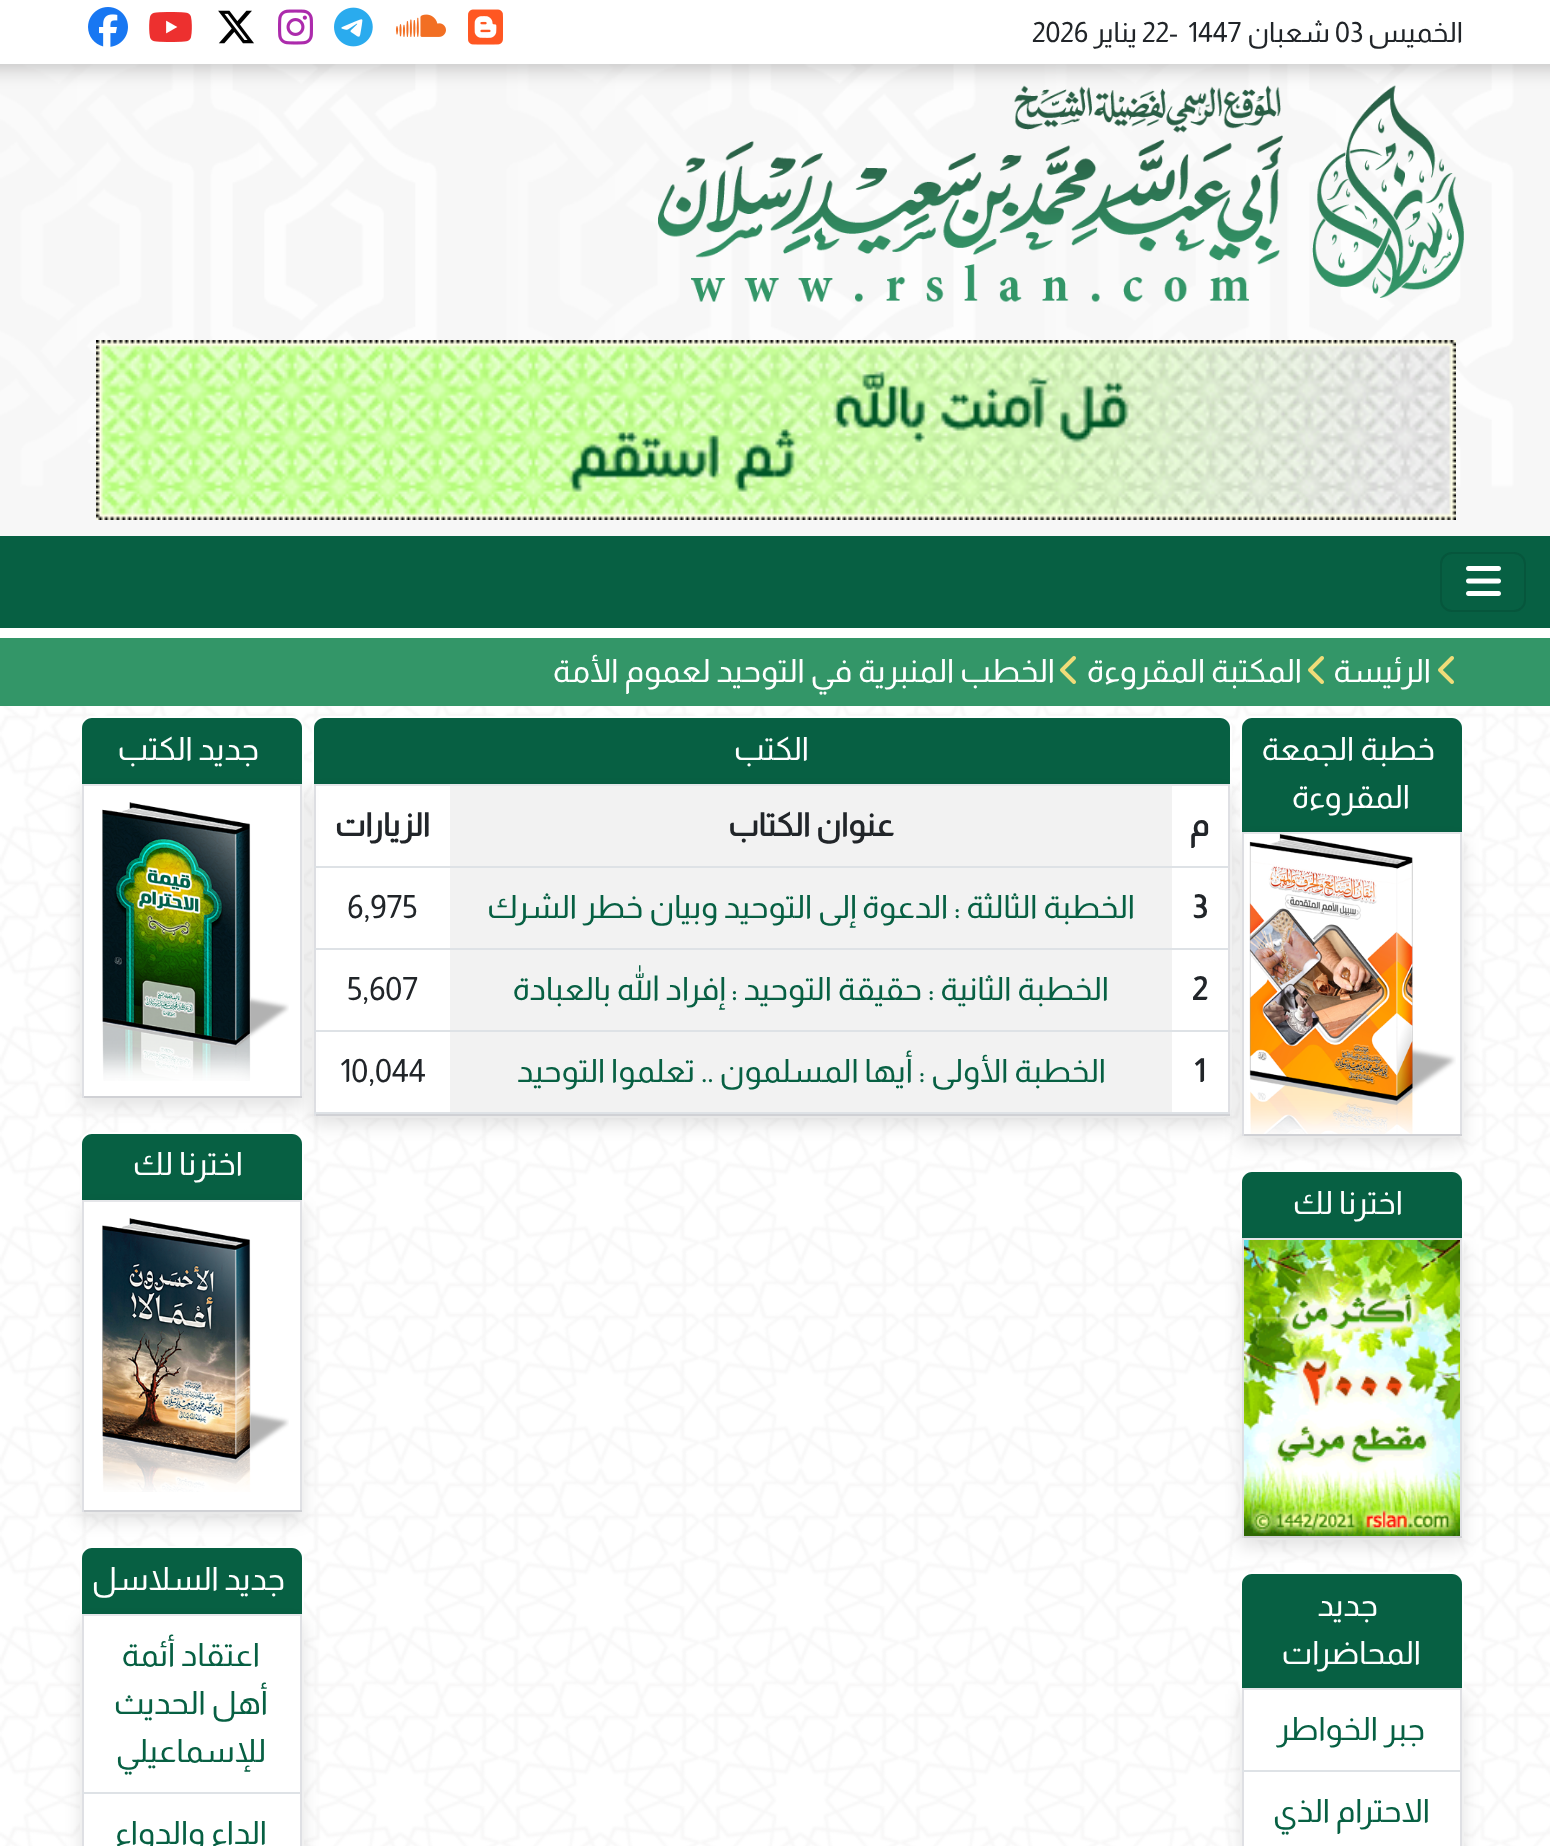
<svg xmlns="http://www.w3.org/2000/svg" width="1550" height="1846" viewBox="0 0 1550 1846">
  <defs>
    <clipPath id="clip1"><path d="M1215 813H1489V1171H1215ZM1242 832H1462V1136H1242Z" clip-rule="evenodd"/></clipPath>
    <filter id="blur1" x="-50%" y="-200%" width="200%" height="500%"><feGaussianBlur stdDeviation="8"/></filter>
    <clipPath id="clip2"><path d="M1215 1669H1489V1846H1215ZM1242 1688H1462V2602H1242Z" clip-rule="evenodd"/></clipPath>
    <clipPath id="clip3"><path d="M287 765H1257V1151H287ZM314 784H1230V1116H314Z" clip-rule="evenodd"/></clipPath>
    <clipPath id="clip4"><path d="M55 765H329V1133H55ZM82 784H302V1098H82Z" clip-rule="evenodd"/></clipPath>
    <clipPath id="clip5"><path d="M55 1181H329V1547H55ZM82 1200H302V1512H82Z" clip-rule="evenodd"/></clipPath>
    <clipPath id="clip6"><path d="M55 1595H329V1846H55ZM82 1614H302V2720H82Z" clip-rule="evenodd"/></clipPath>
  </defs>
  <rect width="100%" height="100%" fill="#ffffff"/>
  <image x="0" y="706" width="1550" height="1140" href="img1.png"/>
  <text x="1463" y="42" font-family="Almarai" font-size="28" direction="rtl" fill="#212529">الخميس</text>
  <text x="1335" y="42" font-family="Almarai" font-size="28" fill="#212529">03</text>
  <text x="1330" y="42" font-family="Almarai" font-size="28" direction="rtl" fill="#212529">شعبان</text>
  <text x="1188" y="42" font-family="Almarai" font-size="28" fill="#212529">1447</text>
  <text x="1142" y="42" font-family="Almarai" font-size="28" fill="#212529">22-</text>
  <text x="1137" y="42" font-family="Almarai" font-size="28" direction="rtl" fill="#212529">يناير</text>
  <text x="1032" y="42" font-family="Almarai" font-size="28" fill="#212529">2026</text>
  <image x="468" y="9" width="35" height="36" href="img2.png"/>
  <image x="396" y="14" width="50" height="23" href="img3.png"/>
  <image x="334" y="7" width="39" height="40" href="img4.png"/>
  <image x="278" y="9" width="35" height="36" href="img5.png"/>
  <image x="218" y="10" width="36" height="34" href="img6.png"/>
  <image x="149" y="12" width="43" height="30" href="img7.png"/>
  <image x="88" y="7" width="40" height="40" href="img8.png"/>
  <image x="0" y="64" width="1550" height="472" href="img9.png"/>
  <image x="658" y="85" width="806" height="217" href="img10.png"/>
  <image x="96" y="340" width="1360" height="180" href="img11.png"/>
  <rect x="0" y="536" width="1550" height="92" fill="#076043"/>
  <rect x="1441" y="553" width="84" height="58" rx="11" fill="none" stroke="#06563c" stroke-width="2"/>
  <image x="1466" y="566" width="35" height="30" href="img12.png"/>
  <rect x="0" y="638" width="1550" height="68" fill="#339668"/>
  <image x="1438" y="656" width="16" height="28" href="img13.png"/>
  <text x="1431" y="682" font-family="Almarai" font-size="32" direction="rtl" fill="#ffffff">الرئيسة</text>
  <image x="1308" y="656" width="16" height="28" href="img13.png"/>
  <text x="1302" y="682" font-family="Almarai" font-size="32" direction="rtl" fill="#ffffff">المكتبة المقروءة</text>
  <image x="1060" y="656" width="16" height="28" href="img13.png"/>
  <text x="1055" y="682" font-family="Almarai" font-size="32" direction="rtl" fill="#ffffff">الخطب المنبرية في التوحيد لعموم الأمة</text>
  <rect x="1240" y="716" width="224" height="422" rx="12" fill="#ffffff"/>
  <path d="M1252 718H1452C1457.5 718 1462 722.5 1462 728V832H1242V728C1242 722.5 1246.5 718 1252 718Z" fill="#076043"/>
  <text x="1435" y="760" font-family="Almarai" font-size="32" direction="rtl" fill="#ffffff">خطبة الجمعة</text>
  <text x="1410" y="808" font-family="Almarai" font-size="32" direction="rtl" fill="#ffffff">المقروءة</text>
  <g clip-path="url(#clip1)">
    <rect x="1240" y="838" width="224" height="308" fill="#000000" fill-opacity="0.1" filter="url(#blur1)"/>
  </g>
  <rect x="1242" y="832" width="220" height="2" fill="#e5e6e9"/>
  <rect x="1460" y="832" width="2" height="304" fill="#dfe0e4"/>
  <rect x="1242" y="1134" width="220" height="2" fill="#d0d1d5"/>
  <rect x="1242" y="832" width="2" height="304" fill="#dfe0e4"/>
  <image x="1249" y="834" width="207" height="300" href="img14.png"/>
  <rect x="1241" y="1171" width="222" height="368" rx="11" fill="none" stroke="#ffffff" stroke-width="2"/>
  <path d="M1252 1172H1452C1457.5 1172 1462 1176.5 1462 1182V1238H1242V1182C1242 1176.5 1246.5 1172 1252 1172Z" fill="#076043"/>
  <text x="1403" y="1214" font-family="Almarai" font-size="32" direction="rtl" fill="#ffffff">اخترنا لك</text>
  <rect x="1240" y="1244" width="224" height="304" fill="#000000" fill-opacity="0.1" filter="url(#blur1)"/>
  <rect x="1242" y="1238" width="220" height="2" fill="#e5e6e9"/>
  <rect x="1460" y="1238" width="2" height="300" fill="#dfe0e4"/>
  <rect x="1242" y="1536" width="220" height="2" fill="#d0d1d5"/>
  <rect x="1242" y="1238" width="2" height="300" fill="#dfe0e4"/>
  <image x="1244" y="1240" width="216" height="296" href="img15.png"/>
  <rect x="1240" y="1572" width="224" height="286" rx="12" fill="#ffffff"/>
  <path d="M1252 1574H1452C1457.5 1574 1462 1578.5 1462 1584V1688H1242V1584C1242 1578.5 1246.5 1574 1252 1574Z" fill="#076043"/>
  <text x="1378" y="1616" font-family="Almarai" font-size="32" direction="rtl" fill="#ffffff">جديد</text>
  <text x="1421" y="1664" font-family="Almarai" font-size="32" direction="rtl" fill="#ffffff">المحاضرات</text>
  <g clip-path="url(#clip2)">
    <rect x="1240" y="1694" width="224" height="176" fill="#000000" fill-opacity="0.1" filter="url(#blur1)"/>
  </g>
  <rect x="1242" y="1688" width="220" height="2" fill="#e5e6e9"/>
  <rect x="1460" y="1688" width="2" height="158" fill="#dfe0e4"/>
  <rect x="1242" y="1688" width="2" height="158" fill="#dfe0e4"/>
  <rect x="1242" y="1770" width="218" height="2" fill="#dee2e6"/>
  <text x="1425" y="1740" font-family="Almarai" font-size="32" direction="rtl" fill="#076043">جبر الخواطر</text>
  <text x="1430" y="1822" font-family="Almarai" font-size="32" direction="rtl" fill="#076043">الاحترام الذي</text>
  <rect x="312" y="716" width="920" height="402" rx="12" fill="#ffffff"/>
  <path d="M324 718H1220C1225.5 718 1230 722.5 1230 728V784H314V728C314 722.5 318.5 718 324 718Z" fill="#076043"/>
  <text x="809" y="760" font-family="Almarai" font-size="32" direction="rtl" fill="#ffffff">الكتب</text>
  <g clip-path="url(#clip3)">
    <rect x="312" y="790" width="920" height="336" fill="#000000" fill-opacity="0.1" filter="url(#blur1)"/>
  </g>
  <rect x="314" y="784" width="916" height="2" fill="#e5e6e9"/>
  <rect x="1228" y="784" width="2" height="332" fill="#dfe0e4"/>
  <rect x="314" y="1114" width="916" height="2" fill="#d0d1d5"/>
  <rect x="314" y="784" width="2" height="332" fill="#dfe0e4"/>
  <text x="1209" y="836" font-family="Almarai" font-size="32" font-weight="bold" direction="rtl" fill="#212529">م</text>
  <rect x="450" y="786" width="722" height="80" fill="#f2f2f2"/>
  <text x="894" y="836" font-family="Almarai" font-size="32" font-weight="bold" direction="rtl" fill="#212529">عنوان الكتاب</text>
  <rect x="314" y="866" width="914" height="2" fill="#dee2e6"/>
  <text x="430" y="836" font-family="Almarai" font-size="32" font-weight="bold" direction="rtl" fill="#212529">الزيارات</text>
  <text x="1192" y="918" font-family="Almarai" font-size="32" font-weight="bold" fill="#212529">3</text>
  <rect x="450" y="868" width="722" height="80" fill="#f2f2f2"/>
  <text x="1135" y="918" font-family="Almarai" font-size="32" direction="rtl" fill="#076043">الخطبة الثالثة : الدعوة إلى التوحيد وبيان خطر الشرك</text>
  <rect x="314" y="948" width="914" height="2" fill="#dee2e6"/>
  <text x="347" y="918" font-family="Almarai" font-size="32" fill="#212529">6,975</text>
  <text x="1192" y="1000" font-family="Almarai" font-size="32" font-weight="bold" fill="#212529">2</text>
  <rect x="450" y="950" width="722" height="80" fill="#f2f2f2"/>
  <text x="1109" y="1000" font-family="Almarai" font-size="32" direction="rtl" fill="#076043">الخطبة الثانية : حقيقة التوحيد : إفراد الله بالعبادة</text>
  <rect x="314" y="1030" width="914" height="2" fill="#dee2e6"/>
  <text x="347" y="1000" font-family="Almarai" font-size="32" fill="#212529">5,607</text>
  <text x="1194" y="1082" font-family="Almarai" font-size="32" font-weight="bold" fill="#212529">1</text>
  <rect x="450" y="1032" width="722" height="80" fill="#f2f2f2"/>
  <text x="1106" y="1082" font-family="Almarai" font-size="32" direction="rtl" fill="#076043">الخطبة الأولى : أيها المسلمون .. تعلموا التوحيد</text>
  <rect x="314" y="1112" width="914" height="2" fill="#dee2e6"/>
  <text x="340" y="1082" font-family="Almarai" font-size="32" fill="#212529">10,044</text>
  <rect x="80" y="716" width="224" height="384" rx="12" fill="#ffffff"/>
  <path d="M92 718H292C297.5 718 302 722.5 302 728V784H82V728C82 722.5 86.5 718 92 718Z" fill="#076043"/>
  <text x="259" y="760" font-family="Almarai" font-size="32" direction="rtl" fill="#ffffff">جديد الكتب</text>
  <g clip-path="url(#clip4)">
    <rect x="80" y="790" width="224" height="318" fill="#000000" fill-opacity="0.1" filter="url(#blur1)"/>
  </g>
  <rect x="82" y="784" width="220" height="2" fill="#e5e6e9"/>
  <rect x="300" y="784" width="2" height="314" fill="#dfe0e4"/>
  <rect x="82" y="1096" width="220" height="2" fill="#d0d1d5"/>
  <rect x="82" y="784" width="2" height="314" fill="#dfe0e4"/>
  <image x="102" y="802" width="187" height="279" href="img16.png"/>
  <rect x="80" y="1132" width="224" height="382" rx="12" fill="#ffffff"/>
  <path d="M92 1134H292C297.5 1134 302 1138.5 302 1144V1200H82V1144C82 1138.5 86.5 1134 92 1134Z" fill="#076043"/>
  <text x="243" y="1175" font-family="Almarai" font-size="32" direction="rtl" fill="#ffffff">اخترنا لك</text>
  <g clip-path="url(#clip5)">
    <rect x="80" y="1206" width="224" height="316" fill="#000000" fill-opacity="0.1" filter="url(#blur1)"/>
  </g>
  <rect x="82" y="1200" width="220" height="2" fill="#e5e6e9"/>
  <rect x="300" y="1200" width="2" height="312" fill="#dfe0e4"/>
  <rect x="82" y="1510" width="220" height="2" fill="#d0d1d5"/>
  <rect x="82" y="1200" width="2" height="312" fill="#dfe0e4"/>
  <image x="102" y="1218" width="187" height="274" href="img17.png"/>
  <rect x="80" y="1546" width="224" height="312" rx="12" fill="#ffffff"/>
  <path d="M92 1548H292C297.5 1548 302 1552.5 302 1558V1614H82V1558C82 1552.5 86.5 1548 92 1548Z" fill="#076043"/>
  <text x="285" y="1590" font-family="Almarai" font-size="32" direction="rtl" fill="#ffffff">جديد السلاسل</text>
  <g clip-path="url(#clip6)">
    <rect x="80" y="1620" width="224" height="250" fill="#000000" fill-opacity="0.1" filter="url(#blur1)"/>
  </g>
  <rect x="82" y="1614" width="220" height="2" fill="#e5e6e9"/>
  <rect x="300" y="1614" width="2" height="232" fill="#dfe0e4"/>
  <rect x="82" y="1614" width="2" height="232" fill="#dfe0e4"/>
  <rect x="82" y="1792" width="218" height="2" fill="#dee2e6"/>
  <text x="260" y="1666" font-family="Almarai" font-size="32" direction="rtl" fill="#076043">اعتقاد أئمة</text>
  <text x="268" y="1714" font-family="Almarai" font-size="32" direction="rtl" fill="#076043">أهل الحديث</text>
  <text x="266" y="1762" font-family="Almarai" font-size="32" direction="rtl" fill="#076043">للإسماعيلي</text>
  <text x="267" y="1844" font-family="Almarai" font-size="32" direction="rtl" fill="#076043">الداء والدواء</text>
</svg>
